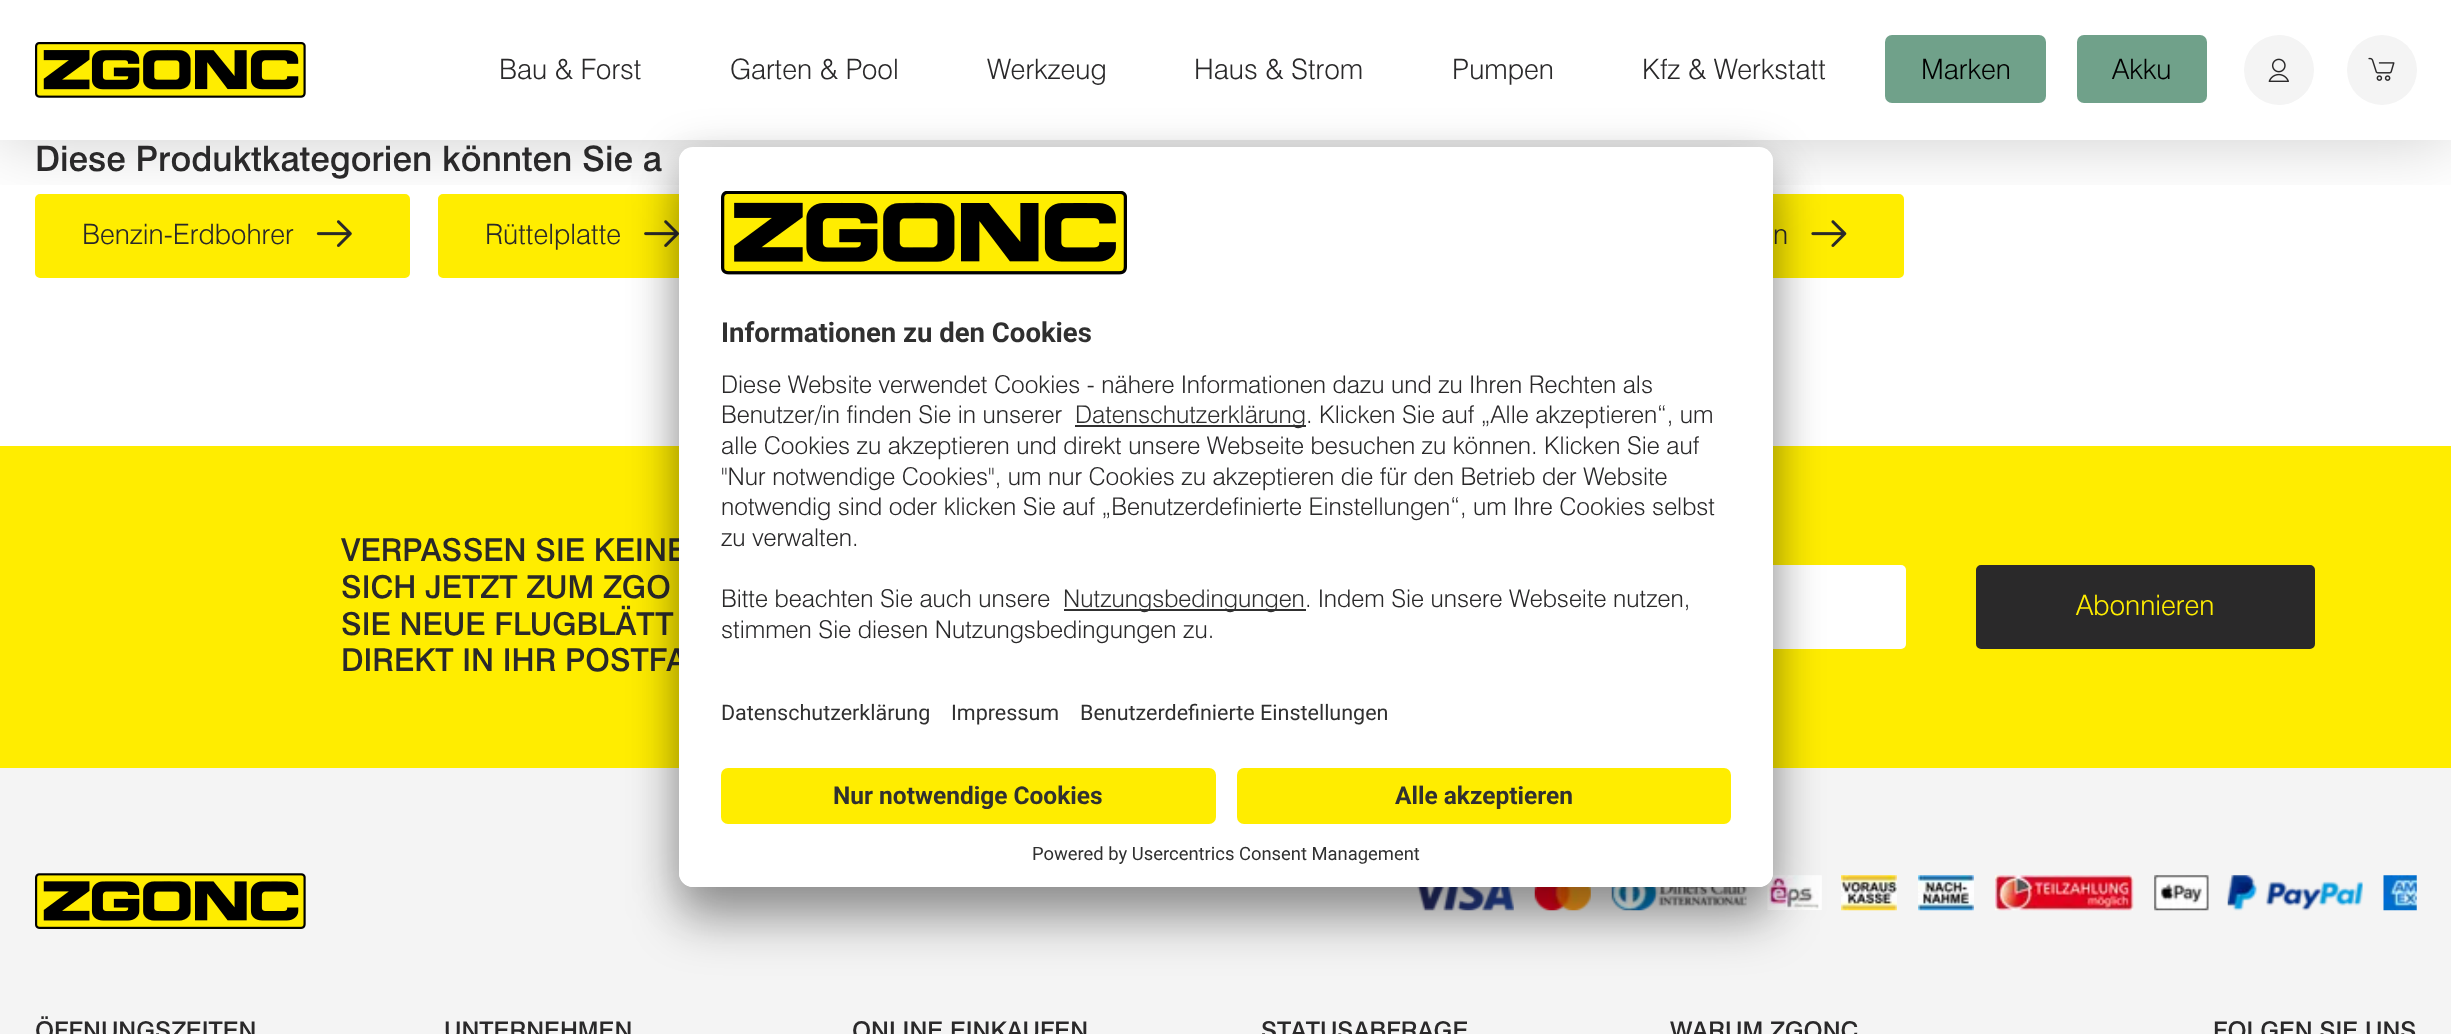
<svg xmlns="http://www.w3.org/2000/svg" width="2451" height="1034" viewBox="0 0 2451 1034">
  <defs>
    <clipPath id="clip1"><rect x="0" y="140" width="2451" height="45"/></clipPath>
    <filter id="blur1" x="-50%" y="-200%" width="200%" height="500%"><feGaussianBlur stdDeviation="35"/></filter>
    <filter id="blur2" x="-50%" y="-200%" width="200%" height="500%"><feGaussianBlur stdDeviation="24.5"/></filter>
    <filter id="blur3" x="-50%" y="-200%" width="200%" height="500%"><feGaussianBlur stdDeviation="23"/></filter>
    <clipPath id="clip2"><rect x="679" y="147" width="1094" height="740" rx="14"/></clipPath>
    <clipPath id="clip3"><path d="M693 147H1759C1766.5 147 1773 153.5 1773 161V754H679V161C679 153.5 685.5 147 693 147Z"/></clipPath>
  </defs>
  <rect width="100%" height="100%" fill="#ffffff"/>
  <rect x="37" y="196" width="371" height="80" rx="3" fill="#ffed00" stroke="#ffed00" stroke-width="4"/>
  <image x="316" y="220" width="36" height="27" href="img4.png"/>
  <rect x="440" y="196" width="295" height="80" rx="3" fill="#ffed00" stroke="#ffed00" stroke-width="4"/>
  <image x="644" y="220" width="35" height="27" href="img5.png"/>
  <rect x="1568" y="196" width="334" height="80" rx="3" fill="#ffed00" stroke="#ffed00" stroke-width="4"/>
  <image x="1811" y="220" width="36" height="27" href="img6.png"/>
  <g clip-path="url(#clip1)">
    <rect x="0" y="0" width="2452" height="140" fill="#2a292a" fill-opacity="0.2" filter="url(#blur1)"/>
  </g>
  <image x="35" y="42" width="271" height="56" href="img1.png"/>
  <text x="499" y="79" font-family="'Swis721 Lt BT'" font-size="28" font-weight="300" fill="#2a292a">Bau &amp; Forst</text>
  <text x="730" y="79" font-family="'Swis721 Lt BT'" font-size="28" font-weight="300" fill="#2a292a">Garten &amp; Pool</text>
  <text x="987" y="79" font-family="'Swis721 Lt BT'" font-size="28" font-weight="300" fill="#2a292a">Werkzeug</text>
  <text x="1194" y="79" font-family="'Swis721 Lt BT'" font-size="28" font-weight="300" fill="#2a292a">Haus &amp; Strom</text>
  <text x="1452" y="79" font-family="'Swis721 Lt BT'" font-size="28" font-weight="300" fill="#2a292a">Pumpen</text>
  <text x="1642" y="79" font-family="'Swis721 Lt BT'" font-size="28" font-weight="300" fill="#2a292a">Kfz &amp; Werkstatt</text>
  <rect x="1885" y="35" width="161" height="68" rx="7" fill="#70a18a"/>
  <text x="1921" y="79" font-family="'Swis721 Lt BT'" font-size="28" font-weight="300" fill="#000000">Marken</text>
  <rect x="2077" y="35" width="130" height="68" rx="7" fill="#70a18a"/>
  <text x="2112" y="79" font-family="'Swis721 Lt BT'" font-size="28" font-weight="300" fill="#000000">Akku</text>
  <circle cx="2279" cy="70" r="35" fill="#f4f4f4"/>
  <image x="2268" y="58" width="21" height="24" href="img2.png"/>
  <circle cx="2382" cy="70" r="35" fill="#f4f4f4"/>
  <image x="2368" y="57" width="27" height="24" href="img3.png"/>
  <text x="35" y="171" font-family="'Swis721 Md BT'" font-size="35" font-weight="500" fill="#2a292a">Diese Produktkategorien könnten Sie a</text>
  <text x="82" y="244" font-family="'Swis721 Lt BT'" font-size="28" font-weight="300" fill="#2a292a">Benzin-Erdbohrer</text>
  <text x="485" y="244" font-family="'Swis721 Lt BT'" font-size="28" font-weight="300" fill="#2a292a">Rüttelplatte</text>
  <text x="1773" y="244" font-family="'Swis721 Lt BT'" font-size="28" font-weight="300" fill="#2a292a">n</text>
  <rect x="0" y="446" width="2451" height="322" fill="#ffed00"/>
  <text x="341" y="561" font-family="'Swis721 Md BT'" font-size="31.5" font-weight="500" fill="#2a292a">VERPASSEN SIE KEINE</text>
  <text x="341" y="598" font-family="'Swis721 Md BT'" font-size="31.5" font-weight="500" fill="#2a292a">SICH JETZT ZUM ZGO</text>
  <text x="341" y="635" font-family="'Swis721 Md BT'" font-size="31.5" font-weight="500" fill="#2a292a">SIE NEUE FLUGBLÄTT</text>
  <text x="341" y="671" font-family="'Swis721 Md BT'" font-size="31.5" font-weight="500" fill="#2a292a">DIREKT IN IHR POSTFA</text>
  <rect x="1363" y="565" width="543" height="84" rx="5" fill="#ffffff"/>
  <rect x="1978" y="567" width="335" height="80" rx="3" fill="#2a292a" stroke="#2a292a" stroke-width="4"/>
  <text x="2076" y="615" font-family="'Swis721 Lt BT'" font-size="28" font-weight="300" fill="#ffed00">Abonnieren</text>
  <rect x="0" y="768" width="2451" height="266" fill="#f4f4f4"/>
  <image x="1417" y="887" width="97" height="24" href="img9.png"/>
  <image x="1534" y="887" width="57" height="24" href="img10.png"/>
  <image x="1611" y="887" width="136" height="24" href="img11.png"/>
  <image x="1767" y="875" width="55" height="35" href="img12.png"/>
  <image x="1841" y="875" width="56" height="36" href="img13.png"/>
  <rect x="679" y="182" width="1094" height="740" rx="14" fill="#000000" fill-opacity="0.3" filter="url(#blur2)"/>
  <rect x="679" y="156" width="1094" height="740" rx="14" fill="#000000" fill-opacity="0.22" filter="url(#blur3)"/>
  <rect x="679" y="147" width="1094" height="740" rx="14" fill="#ffffff"/>
  <g clip-path="url(#clip2)">
    <g clip-path="url(#clip3)">
      <rect x="679" y="149" width="1094" height="605" fill="#ffffff"/>
    </g>
  </g>
  <image x="721" y="191" width="406" height="84" href="img7.png"/>
  <text x="721" y="342" font-family="Roboto" font-size="27.5" font-weight="bold" fill="#303030">Informationen zu den Cookies</text>
  <text x="721" y="393" font-family="'Swis721 Lt BT'" font-size="24.5" font-weight="300" fill="#2a292a">Diese Website verwendet Cookies - nähere Informationen dazu und zu Ihren Rechten als</text>
  <text x="721" y="423" font-family="'Swis721 Lt BT'" font-size="24.5" font-weight="300" fill="#2a292a">Benutzer/in finden Sie in unserer</text>
  <rect x="1075" y="425" width="231" height="2" fill="#303030"/>
  <text x="1075" y="423" font-family="'Swis721 Lt BT'" font-size="24.5" font-weight="300" fill="#303030">Datenschutzerklärung</text>
  <text x="1306" y="423" font-family="'Swis721 Lt BT'" font-size="24.5" font-weight="300" fill="#2a292a">. Klicken Sie auf „Alle akzeptieren“, um</text>
  <text x="721" y="454" font-family="'Swis721 Lt BT'" font-size="24.5" font-weight="300" fill="#2a292a">alle Cookies zu akzeptieren und direkt unsere Webseite besuchen zu können. Klicken Sie auf</text>
  <text x="721" y="485" font-family="'Swis721 Lt BT'" font-size="24.5" font-weight="300" fill="#2a292a">"Nur notwendige Cookies", um nur Cookies zu akzeptieren die für den Betrieb der Website</text>
  <text x="721" y="515" font-family="'Swis721 Lt BT'" font-size="24.5" font-weight="300" fill="#2a292a">notwendig sind oder klicken Sie auf „Benutzerdefinierte Einstellungen“, um Ihre Cookies selbst</text>
  <text x="721" y="546" font-family="'Swis721 Lt BT'" font-size="24.5" font-weight="300" fill="#2a292a">zu verwalten.</text>
  <text x="721" y="607" font-family="'Swis721 Lt BT'" font-size="24.5" font-weight="300" fill="#2a292a">Bitte beachten Sie auch unsere</text>
  <rect x="1064" y="609" width="242" height="2" fill="#303030"/>
  <text x="1063" y="607" font-family="'Swis721 Lt BT'" font-size="24.5" font-weight="300" fill="#303030">Nutzungsbedingungen</text>
  <text x="1305" y="607" font-family="'Swis721 Lt BT'" font-size="24.5" font-weight="300" fill="#2a292a">. Indem Sie unsere Webseite nutzen,</text>
  <text x="721" y="638" font-family="'Swis721 Lt BT'" font-size="24.5" font-weight="300" fill="#2a292a">stimmen Sie diesen Nutzungsbedingungen zu.</text>
  <text x="721" y="720" font-family="Roboto" font-size="21.5" fill="#303030">Datenschutzerklärung</text>
  <text x="951" y="720" font-family="Roboto" font-size="21.5" fill="#303030">Impressum</text>
  <text x="1080" y="720" font-family="Roboto" font-size="21.5" fill="#303030">Benutzerdefinierte Einstellungen</text>
  <path d="M679 754H1773V873C1773 880.5 1766.5 887 1759 887H693C685.5 887 679 880.5 679 873Z" fill="#ffffff"/>
  <rect x="721" y="768" width="495" height="56" rx="7" fill="#ffed00"/>
  <text x="833" y="804" font-family="Roboto" font-size="24.5" font-weight="bold" fill="#303030">Nur notwendige Cookies</text>
  <rect x="1237" y="768" width="494" height="56" rx="7" fill="#ffed00"/>
  <text x="1395" y="804" font-family="Roboto" font-size="24.5" font-weight="bold" fill="#303030">Alle akzeptieren</text>
  <text x="1032" y="860" font-family="Roboto" font-size="18.4" fill="#303030">Powered by Usercentrics Consent Management</text>
  <image x="35" y="873" width="271" height="56" href="img8.png"/>
  <image x="1918" y="875" width="56" height="36" href="img14.png"/>
  <image x="1995" y="875" width="139" height="36" href="img15.png"/>
  <image x="2154" y="875" width="55" height="36" href="img16.png"/>
  <image x="2227" y="875" width="136" height="36" href="img17.png"/>
  <image x="2383" y="875" width="34" height="36" href="img18.png"/>
  <text x="35" y="1039" font-family="'Swis721 Md BT'" font-size="24.5" font-weight="500" fill="#2a292a">ÖFFNUNGSZEITEN</text>
  <text x="444" y="1039" font-family="'Swis721 Md BT'" font-size="24.5" font-weight="500" fill="#2a292a">UNTERNEHMEN</text>
  <text x="852" y="1039" font-family="'Swis721 Md BT'" font-size="24.5" font-weight="500" fill="#2a292a">ONLINE EINKAUFEN</text>
  <text x="1261" y="1039" font-family="'Swis721 Md BT'" font-size="24.5" font-weight="500" fill="#2a292a">STATUSABFRAGE</text>
  <text x="1670" y="1039" font-family="'Swis721 Md BT'" font-size="24.5" font-weight="500" fill="#2a292a">WARUM ZGONC</text>
  <text x="2213" y="1039" font-family="'Swis721 Md BT'" font-size="24.5" font-weight="500" fill="#2a292a">FOLGEN SIE UNS</text>
</svg>
